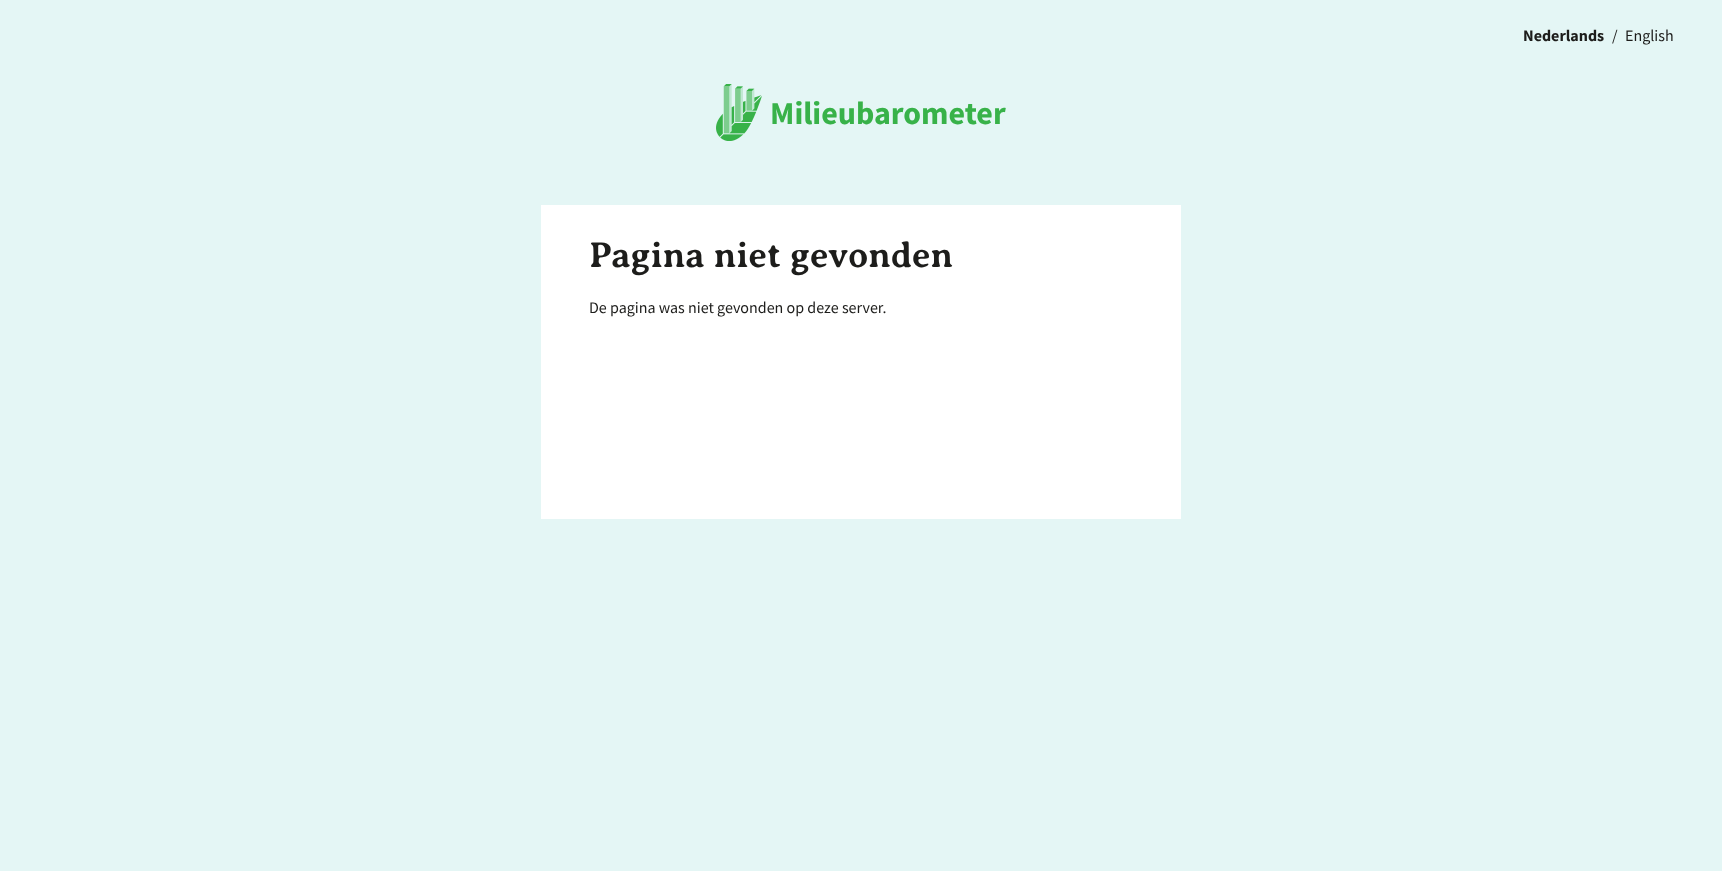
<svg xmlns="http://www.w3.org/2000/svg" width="1722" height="871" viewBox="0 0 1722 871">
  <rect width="100%" height="100%" fill="#e4f6f5"/>
  <text x="1523" y="41" font-family="Source Sans Pro" font-size="16" font-weight="bold" fill="#1d1d1b">Nederlands</text>
  <text x="1612" y="41" font-family="Source Sans Pro" font-size="16" fill="#1d1d1b">/</text>
  <text x="1625" y="41" font-family="Source Sans Pro" font-size="16" fill="#1d1d1b">English</text>
  <image x="716" y="84" width="46" height="57" href="img1.png"/>
  <text x="770" y="124" font-family="Source Sans Pro" font-size="32" font-weight="bold" fill="#38b249">Milieubarometer</text>
  <rect x="541" y="205" width="640" height="314" fill="#ffffff"/>
  <text x="589" y="267" font-family="Averia Serif Libre" font-size="36" font-weight="bold" fill="#1d1d1b">Pagina niet gevonden</text>
  <text x="589" y="313" font-family="Source Sans Pro" font-size="16" fill="#1d1d1b">De pagina was niet gevonden op deze server.</text>
</svg>
